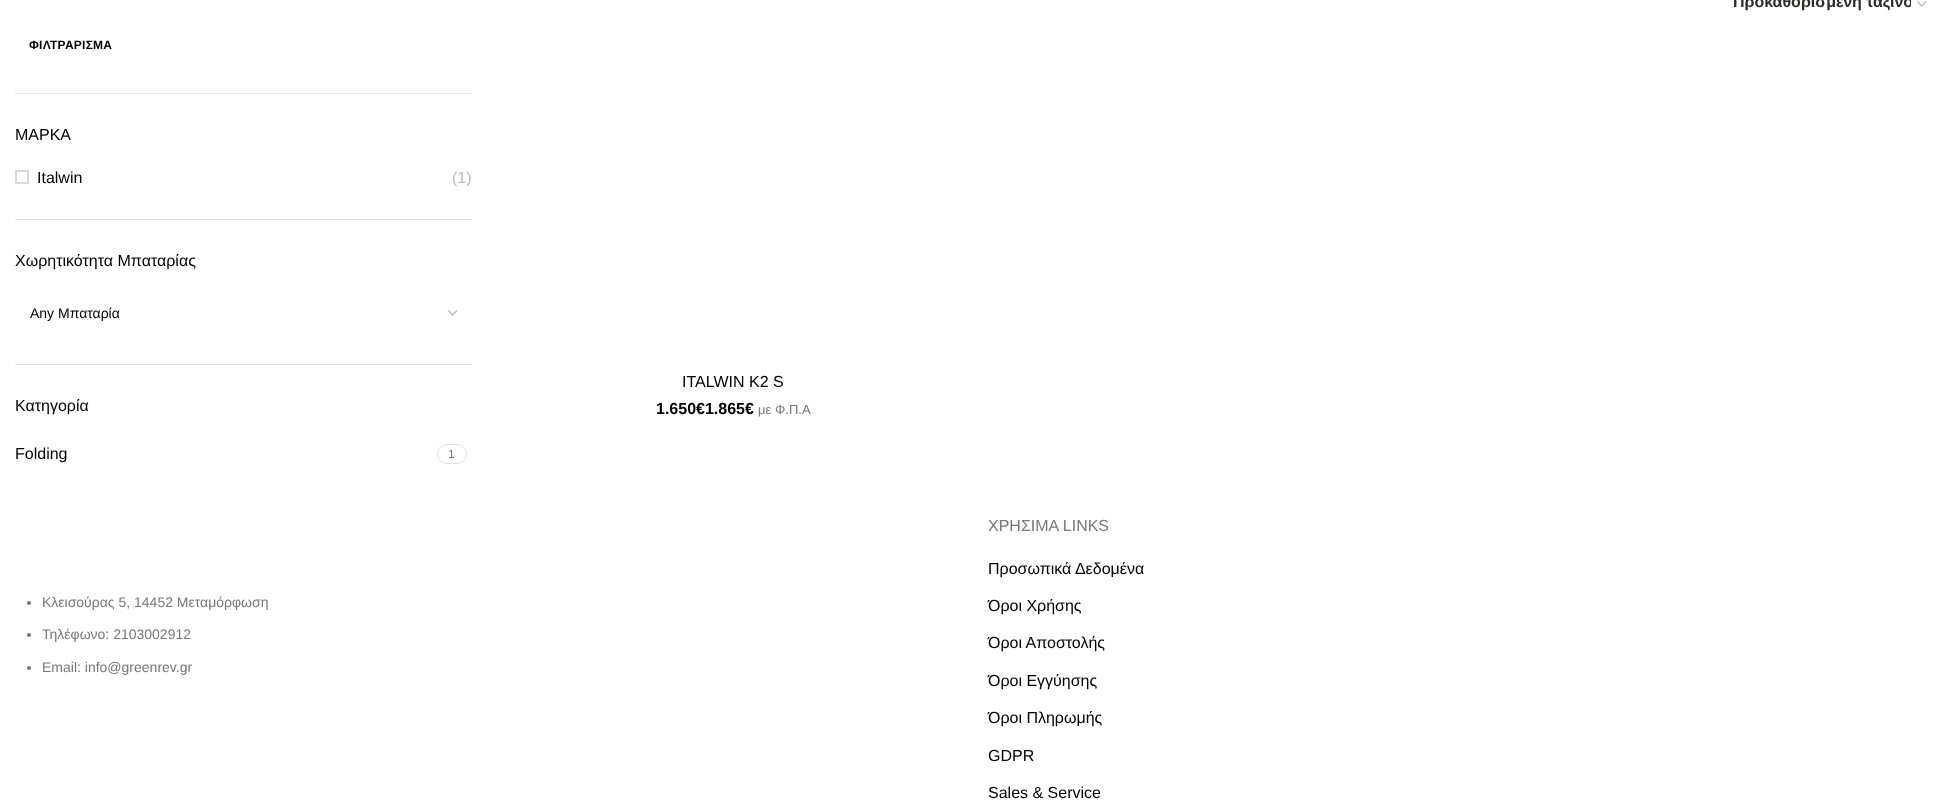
<svg xmlns="http://www.w3.org/2000/svg" width="1946" height="811" viewBox="0 0 1946 811">
  <defs>
    <clipPath id="clip1"><rect x="1733" y="0" width="178" height="11"/></clipPath>
  </defs>
  <rect width="100%" height="100%" fill="#ffffff"/>
  <rect x="15" y="93" width="457" height="1" fill="#e4e4e4"/>
  <text x="29" y="49" font-family="Liberation Sans" font-size="12" font-weight="bold" letter-spacing="0.25" fill="#000000">ΦΙΛΤΡΑΡΙΣΜΑ</text>
  <rect x="15" y="219" width="457" height="1" fill="#e4e4e4"/>
  <text x="15" y="140" font-family="Liberation Sans" font-size="16" fill="#000000">ΜΑΡΚΑ</text>
  <rect x="16" y="171" width="12" height="12" fill="none" stroke="#d8d8d8" stroke-width="2"/>
  <text x="37" y="183" font-family="Liberation Sans" font-size="16" fill="#000000">Italwin</text>
  <text x="452" y="183" font-family="Liberation Sans" font-size="16" fill="#bbbbbb">(1)</text>
  <rect x="15" y="364" width="457" height="1" fill="#e4e4e4"/>
  <text x="15" y="266" font-family="Liberation Sans" font-size="16" fill="#000000">Χωρητικότητα Μπαταρίας</text>
  <path d="M448.5 310.5L452.5 315L457 310.5" fill="none" stroke="#bbbbbb" stroke-width="1.4"/>
  <text x="30" y="318" font-family="Liberation Sans" font-size="14" fill="#000000">Any Μπαταρία</text>
  <text x="15" y="411" font-family="Liberation Sans" font-size="16" fill="#000000">Κατηγορία</text>
  <text x="15" y="459" font-family="Liberation Sans" font-size="16" fill="#000000">Folding</text>
  <rect x="437.5" y="444.5" width="29" height="19" rx="9.5" fill="none" stroke="#e4e4e4"/>
  <text x="448" y="458" font-family="Liberation Sans" font-size="12" fill="#777777">1</text>
  <path d="M1917.5 1.5L1921.5 6L1926 1.5" fill="none" stroke="#bbbbbb" stroke-width="1.4"/>
  <g clip-path="url(#clip1)">
    <text x="1733" y="7" font-family="Liberation Sans" font-size="16" font-weight="bold" fill="#2d2a2a">Προκαθορισμένη ταξινό</text>
  </g>
  <text x="682" y="387" font-family="Liberation Sans" font-size="16" fill="#000000">ITALWIN K2 S</text>
  <text x="656" y="414" font-family="Liberation Sans" font-size="16" font-weight="bold" fill="#000000">1.650€1.865€</text>
  <text x="758" y="414" font-family="Liberation Sans" font-size="13" fill="#777777">με Φ.Π.Α</text>
  <circle cx="29" cy="603" r="2" fill="#777777"/>
  <text x="42" y="607" font-family="Liberation Sans" font-size="14" fill="#777777">Κλεισούρας 5, 14452 Μεταμόρφωση</text>
  <circle cx="29" cy="635" r="2" fill="#777777"/>
  <text x="42" y="639" font-family="Liberation Sans" font-size="14" fill="#777777">Τηλέφωνο: 2103002912</text>
  <circle cx="29" cy="668" r="2" fill="#777777"/>
  <text x="42" y="672" font-family="Liberation Sans" font-size="14" fill="#777777">Email: info@greenrev.gr</text>
  <text x="988" y="531" font-family="Liberation Sans" font-size="16" fill="#777777">ΧΡΗΣΙΜΑ LINKS</text>
  <text x="988" y="574" font-family="Liberation Sans" font-size="16" fill="#000000">Προσωπικά Δεδομένα</text>
  <text x="988" y="611" font-family="Liberation Sans" font-size="16" fill="#000000">Όροι Χρήσης</text>
  <text x="988" y="648" font-family="Liberation Sans" font-size="16" fill="#000000">Όροι Αποστολής</text>
  <text x="988" y="686" font-family="Liberation Sans" font-size="16" fill="#000000">Όροι Εγγύησης</text>
  <text x="988" y="723" font-family="Liberation Sans" font-size="16" fill="#000000">Όροι Πληρωμής</text>
  <text x="988" y="761" font-family="Liberation Sans" font-size="16" fill="#000000">GDPR</text>
  <text x="988" y="798" font-family="Liberation Sans" font-size="16" fill="#000000">Sales &amp; Service</text>
</svg>
